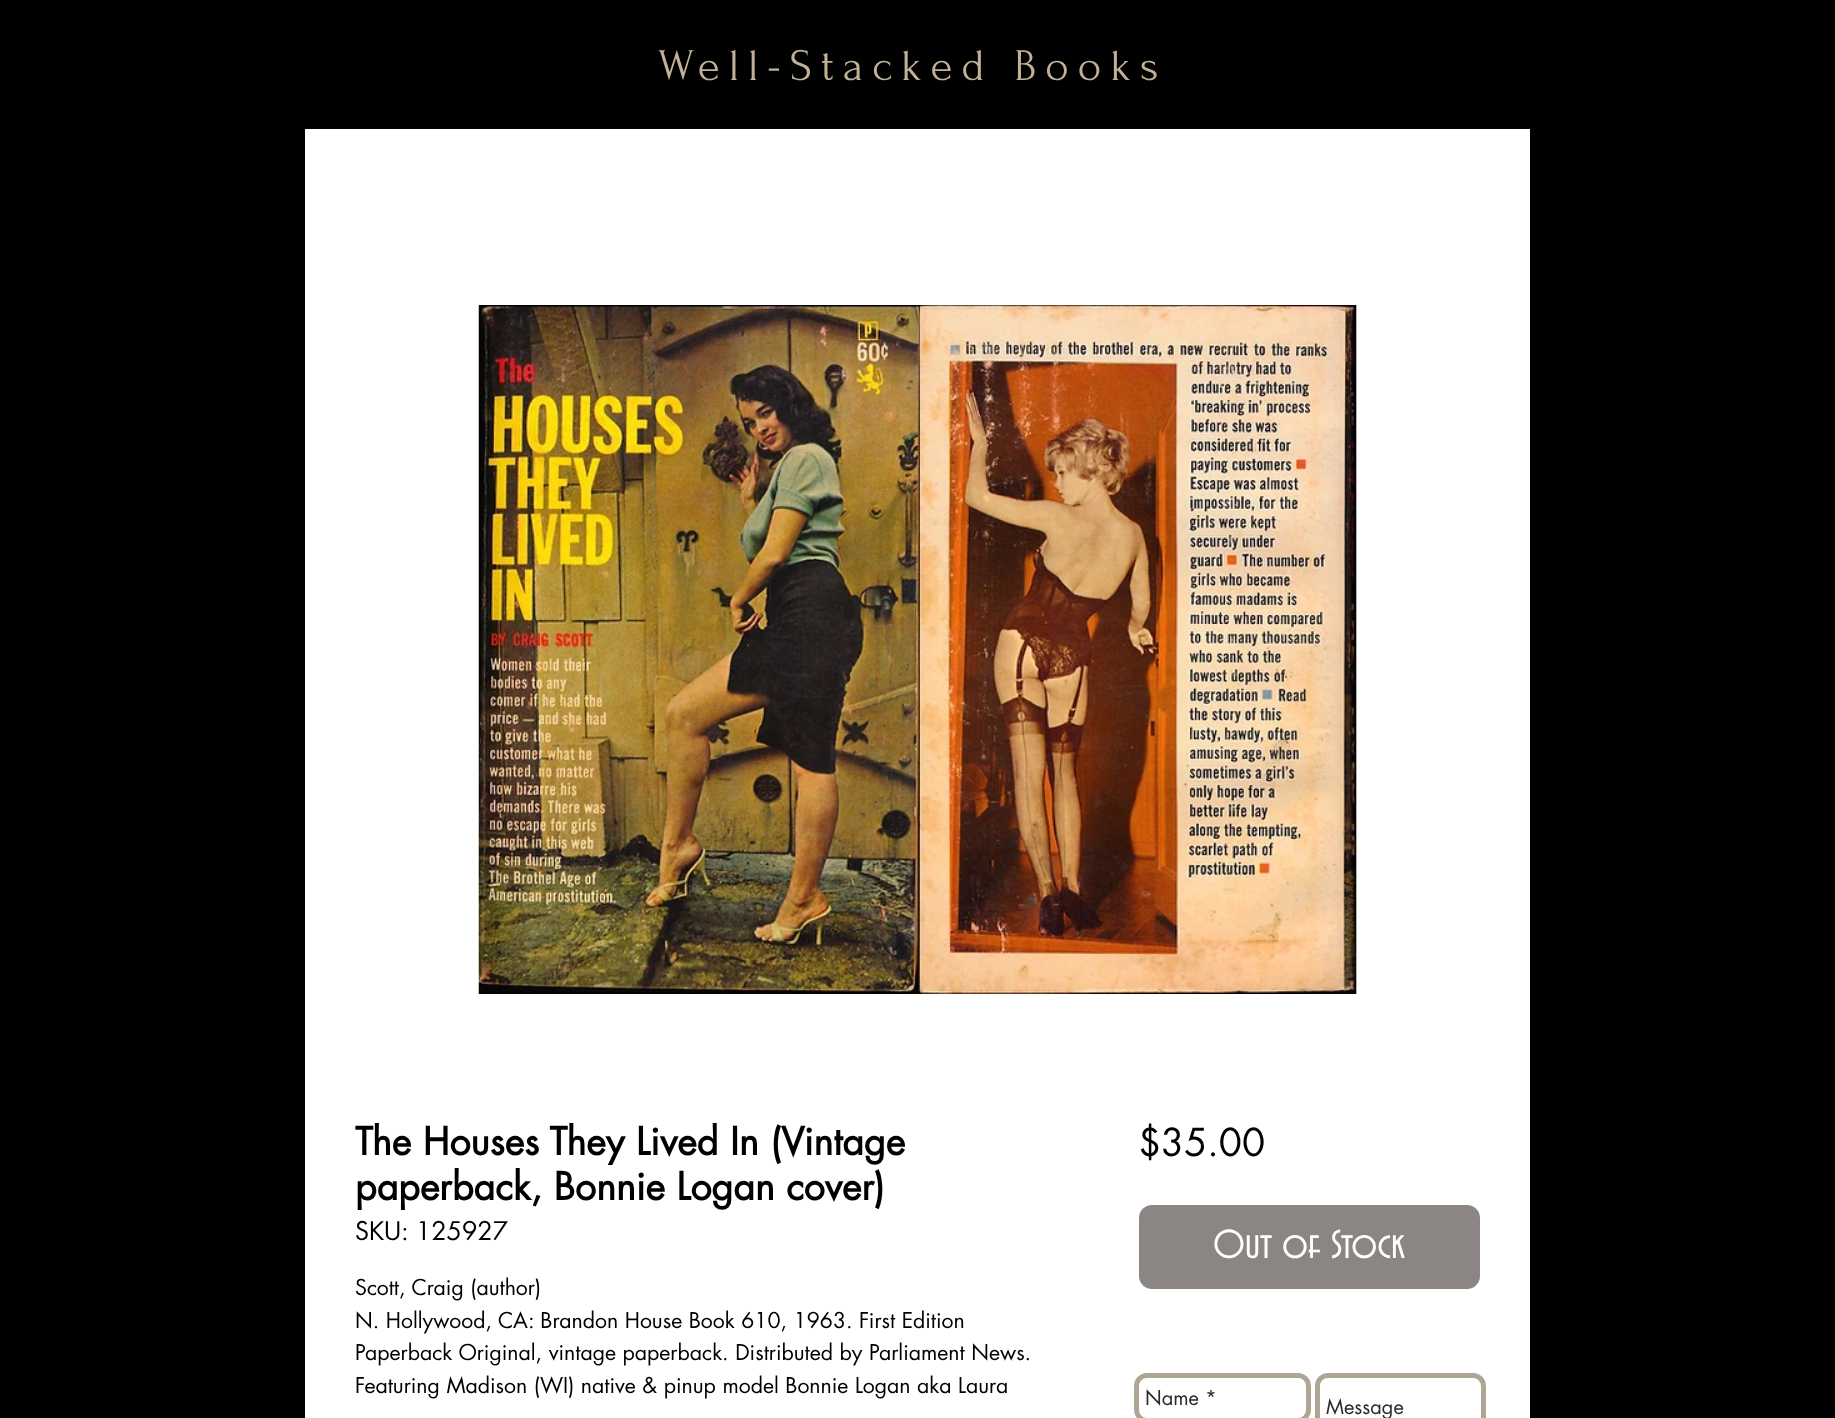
<svg xmlns="http://www.w3.org/2000/svg" width="1835" height="1418" viewBox="0 0 1835 1418">
  <rect width="100%" height="100%" fill="#000000"/>
  <text x="658" y="80" font-family="Forum" font-size="45" letter-spacing="9" fill="#c1b297">Well-Stacked Books</text>
  <rect x="305" y="129" width="1225" height="1289" fill="#ffffff"/>
  <image x="478" y="305" width="879" height="689" href="img1.png"/>
  <text x="355" y="1155" font-family="futura" font-size="37.5" font-weight="bold" fill="#000000">The Houses They Lived In (Vintage</text>
  <text x="355" y="1200" font-family="futura" font-size="37.5" font-weight="bold" fill="#000000">paperback, Bonnie Logan cover)</text>
  <text x="355" y="1240" font-family="futura" font-size="25" fill="#000000">SKU: 125927</text>
  <text x="355" y="1295" font-family="futura" font-size="21.25" fill="#000000">Scott, Craig (author)</text>
  <text x="355" y="1328" font-family="futura" font-size="21.25" fill="#000000">N. Hollywood, CA: Brandon House Book 610, 1963. First Edition</text>
  <text x="355" y="1360" font-family="futura" font-size="21.25" fill="#000000">Paperback Original, vintage paperback. Distributed by Parliament News.</text>
  <text x="355" y="1393" font-family="futura" font-size="21.25" fill="#000000">Featuring Madison (WI) native &amp; pinup model Bonnie Logan aka Laura</text>
  <text x="1138" y="1156" font-family="futura" font-size="37.5" fill="#000000">$35.00</text>
  <rect x="1139" y="1205" width="341" height="84" rx="13" fill="#8b8683"/>
  <text x="1213" y="1258" font-family="'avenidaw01'" font-size="42.5" fill="#ffffff">Out of Stock</text>
  <rect x="1136.5" y="1375.5" width="172" height="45" rx="10.5" fill="none" stroke="#aea595" stroke-width="5"/>
  <text x="1145" y="1405" font-family="futura" font-size="20" fill="#2a2a2a">Name *</text>
  <rect x="1317.5" y="1375.5" width="166" height="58" rx="10.5" fill="none" stroke="#aea595" stroke-width="5"/>
  <text x="1326" y="1414" font-family="futura" font-size="20" fill="#2a2a2a">Message</text>
</svg>
